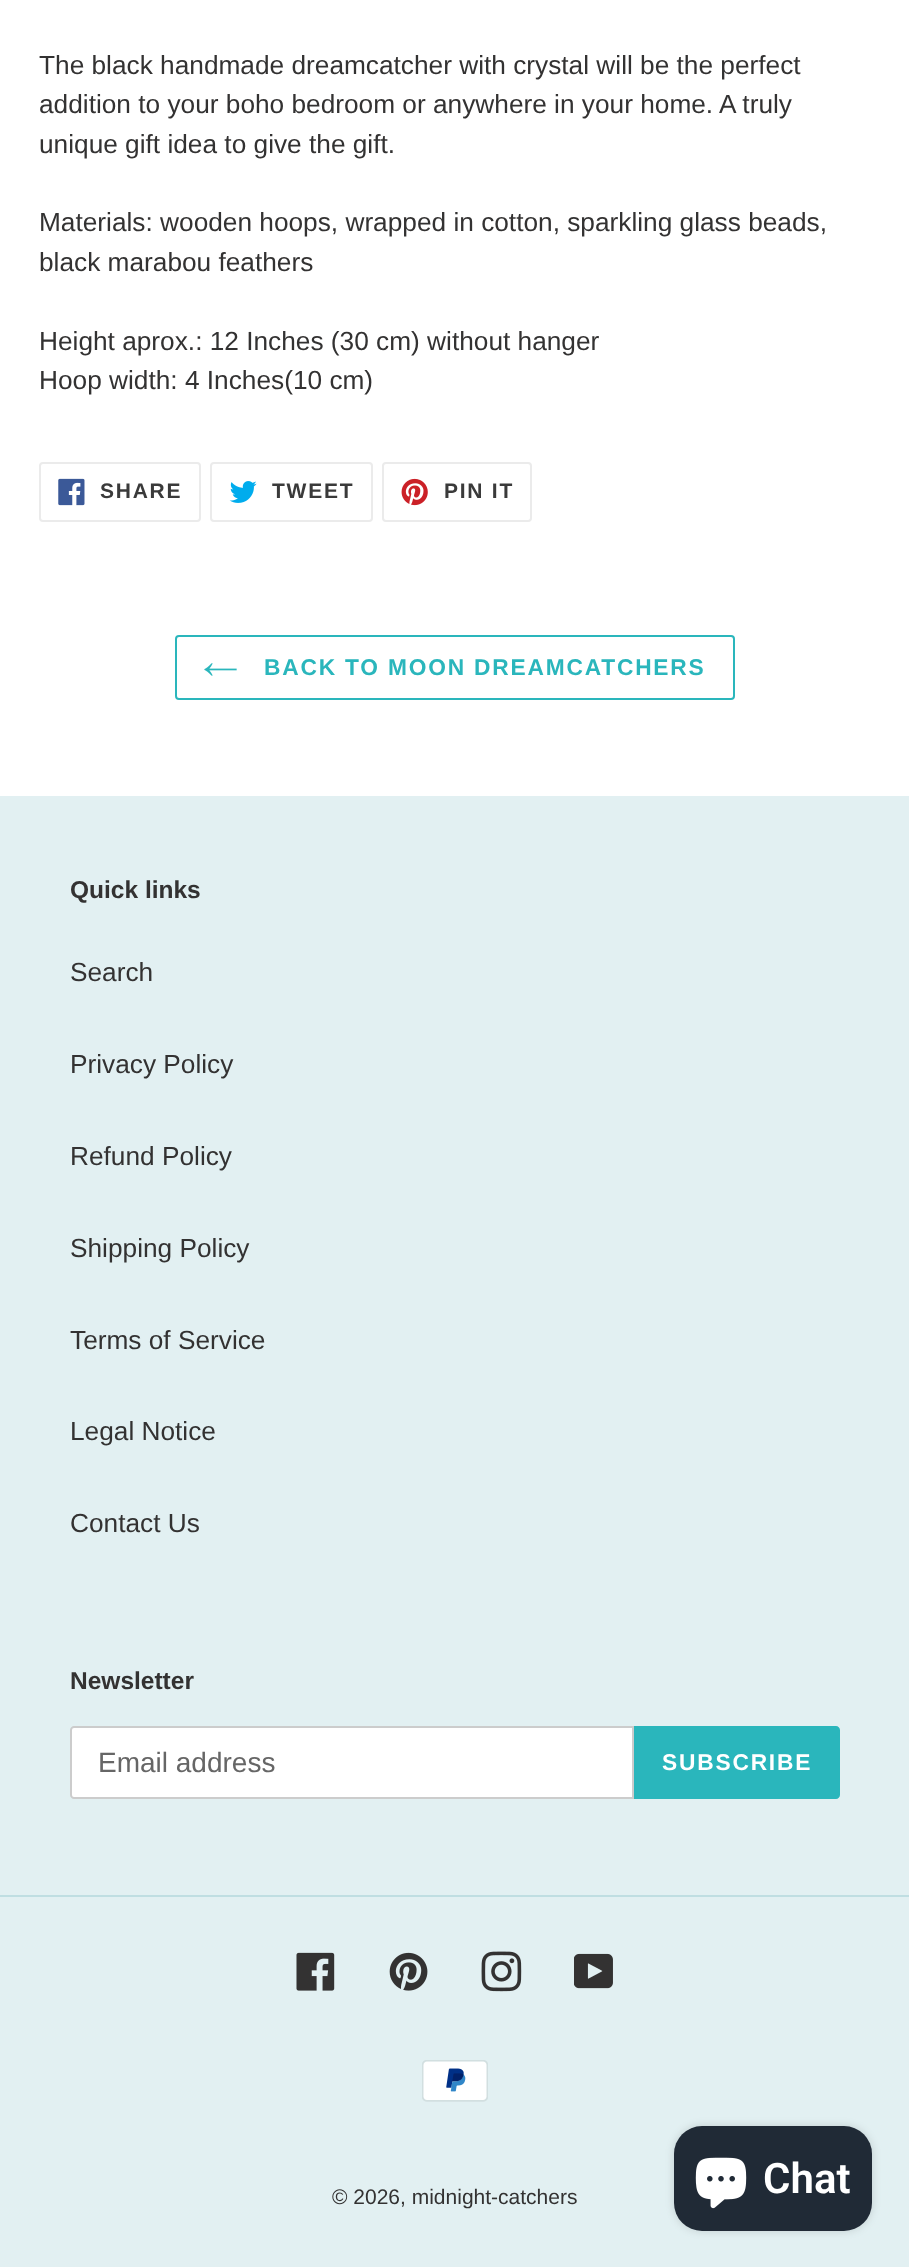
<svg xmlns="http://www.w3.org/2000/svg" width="909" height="2267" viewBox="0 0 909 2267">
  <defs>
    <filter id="blur1" x="-50%" y="-200%" width="200%" height="500%"><feGaussianBlur stdDeviation="4.5"/></filter>
  </defs>
  <rect width="100%" height="100%" fill="#ffffff"/>
  <text x="39" y="74" font-family="Liberation Sans" font-size="26.25" fill="#333232">The black handmade dreamcatcher with crystal will be the perfect</text>
  <text x="39" y="113" font-family="Liberation Sans" font-size="26.25" fill="#333232">addition to your boho bedroom or anywhere in your home. A truly</text>
  <text x="39" y="153" font-family="Liberation Sans" font-size="26.25" fill="#333232">unique gift idea to give the gift.</text>
  <text x="39" y="231" font-family="Liberation Sans" font-size="26.25" fill="#333232">Materials: wooden hoops, wrapped in cotton, sparkling glass beads,</text>
  <text x="39" y="271" font-family="Liberation Sans" font-size="26.25" fill="#333232">black marabou feathers</text>
  <text x="39" y="350" font-family="Liberation Sans" font-size="26.25" fill="#333232">Height aprox.: 12 Inches (30 cm) without hanger</text>
  <text x="39" y="389" font-family="Liberation Sans" font-size="26.25" fill="#333232">Hoop width: 4 Inches(10 cm)</text>
  <rect x="40" y="463" width="160" height="58" rx="3" fill="none" stroke="#ebebeb" stroke-width="2"/>
  <image x="58" y="478" width="27" height="28" href="img1.png"/>
  <text x="100" y="498" font-family="Liberation Sans" font-size="21" font-weight="bold" letter-spacing="1.75" fill="#3a3a3a">SHARE</text>
  <rect x="211" y="463" width="161" height="58" rx="3" fill="none" stroke="#ebebeb" stroke-width="2"/>
  <image x="229" y="481" width="28" height="22" href="img2.png"/>
  <text x="272" y="498" font-family="Liberation Sans" font-size="21" font-weight="bold" letter-spacing="1.75" fill="#3a3a3a">TWEET</text>
  <rect x="383" y="463" width="148" height="58" rx="3" fill="none" stroke="#ebebeb" stroke-width="2"/>
  <image x="401" y="478" width="27" height="28" href="img3.png"/>
  <text x="444" y="498" font-family="Liberation Sans" font-size="21" font-weight="bold" letter-spacing="1.75" fill="#3a3a3a">PIN IT</text>
  <rect x="176" y="636" width="558" height="63" rx="3" fill="none" stroke="#2ab6bc" stroke-width="2"/>
  <image x="204" y="663" width="33" height="13" href="img4.png"/>
  <text x="264" y="675" font-family="Liberation Sans" font-size="22.75" font-weight="bold" letter-spacing="1.8" fill="#2ab6bc">BACK TO MOON DREAMCATCHERS</text>
  <rect x="0" y="796" width="909" height="1471" fill="#e2f0f2"/>
  <text x="70" y="898" font-family="Liberation Sans" font-size="24.5" font-weight="bold" fill="#333232">Quick links</text>
  <text x="70" y="981" font-family="Liberation Sans" font-size="26.25" fill="#333232">Search</text>
  <text x="70" y="1073" font-family="Liberation Sans" font-size="26.25" fill="#333232">Privacy Policy</text>
  <text x="70" y="1165" font-family="Liberation Sans" font-size="26.25" fill="#333232">Refund Policy</text>
  <text x="70" y="1257" font-family="Liberation Sans" font-size="26.25" fill="#333232">Shipping Policy</text>
  <text x="70" y="1349" font-family="Liberation Sans" font-size="26.25" fill="#333232">Terms of Service</text>
  <text x="70" y="1440" font-family="Liberation Sans" font-size="26.25" fill="#333232">Legal Notice</text>
  <text x="70" y="1532" font-family="Liberation Sans" font-size="26.25" fill="#333232">Contact Us</text>
  <text x="70" y="1689" font-family="Liberation Sans" font-size="24.5" font-weight="bold" fill="#333232">Newsletter</text>
  <path d="M74 1727H633V1798H74C72.5 1798 71 1796.5 71 1795V1730C71 1728.5 72.5 1727 74 1727Z" fill="#ffffff" stroke="#cccccc" stroke-width="2"/>
  <text x="98" y="1772" font-family="Liberation Sans" font-size="28" fill="#666666">Email address</text>
  <path d="M634 1726H836C838 1726 840 1728 840 1730V1795C840 1797 838 1799 836 1799H634Z" fill="#2ab6bc"/>
  <text x="662" y="1770" font-family="Liberation Sans" font-size="22.75" font-weight="bold" letter-spacing="1.8" fill="#ffffff">SUBSCRIBE</text>
  <rect x="0" y="1895" width="909" height="2" fill="#bfdee2"/>
  <image x="296" y="1952" width="39" height="39" href="img5.png"/>
  <image x="389" y="1952" width="39" height="39" href="img6.png"/>
  <image x="481" y="1951" width="41" height="41" href="img7.png"/>
  <image x="574" y="1953" width="39" height="36" href="img8.png"/>
  <image x="422" y="2060" width="66" height="42" href="img9.png"/>
  <text x="332" y="2204" font-family="Liberation Sans" font-size="21" fill="#333232">© 2026, midnight-catchers</text>
  <rect x="674" y="2126" width="198" height="105" rx="28" fill="#000000" fill-opacity="0.15" filter="url(#blur1)"/>
  <rect x="674" y="2126" width="198" height="105" rx="28" fill="#202a36"/>
  <image x="695" y="2157" width="52" height="52" href="img10.png"/>
  <text x="763" y="2193" font-family="Roboto" font-size="42" font-weight="600" fill="#ffffff">Chat</text>
</svg>
